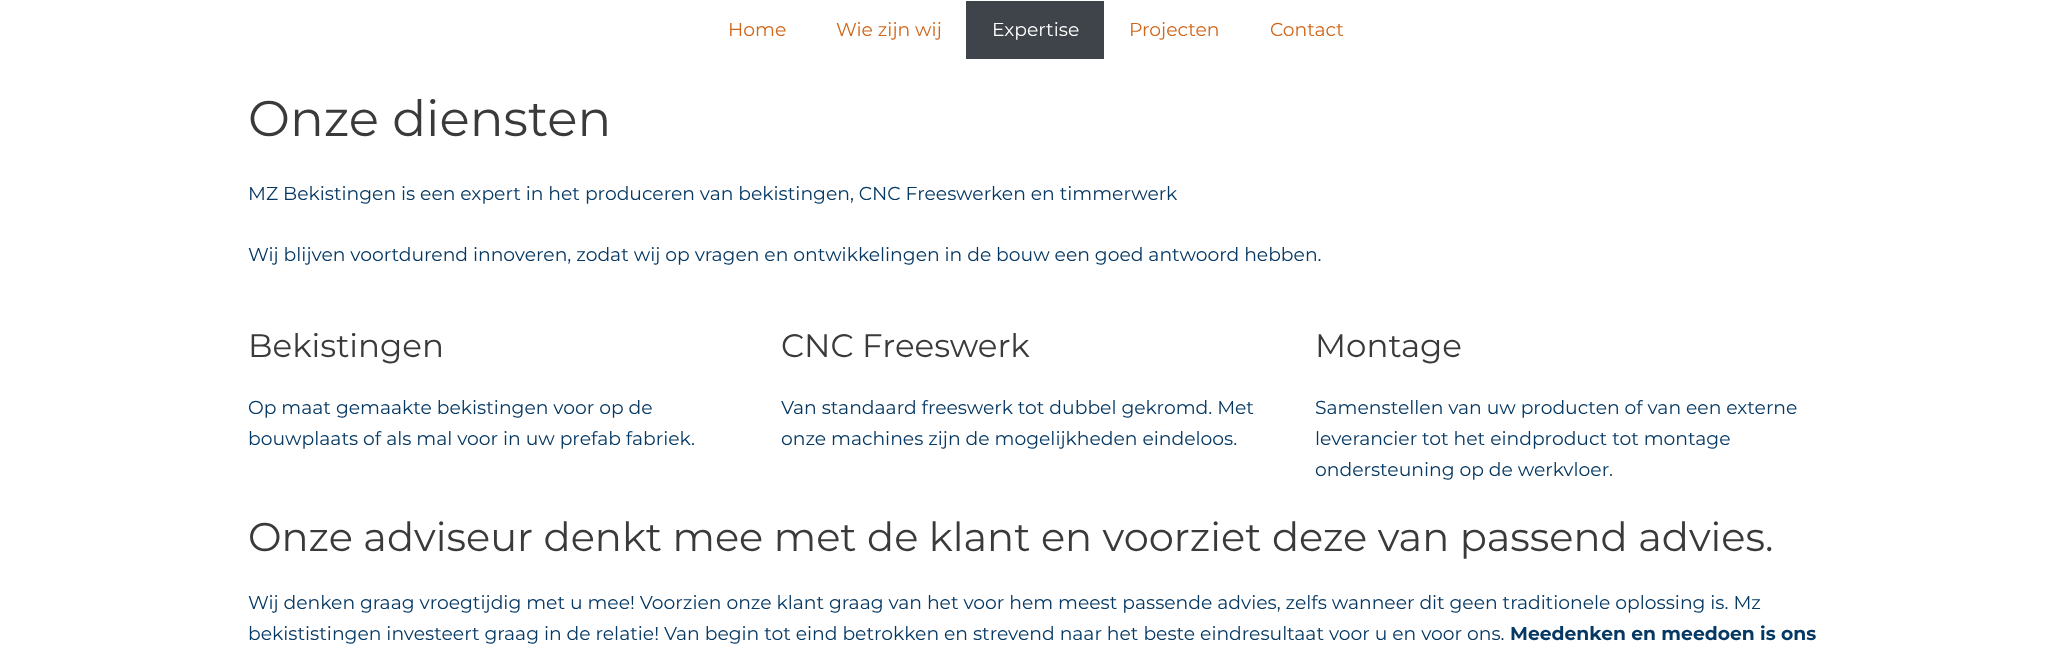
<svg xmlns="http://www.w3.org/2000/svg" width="2071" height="668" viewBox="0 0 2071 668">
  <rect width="100%" height="100%" fill="#ffffff"/>
  <text x="728" y="36" font-family="Montserrat" font-size="18.75" fill="#d0661a">Home</text>
  <text x="836" y="36" font-family="Montserrat" font-size="18.75" fill="#d0661a">Wie zijn wij</text>
  <rect x="966" y="1" width="138" height="58" fill="#3f444b"/>
  <text x="992" y="36" font-family="Montserrat" font-size="18.75" fill="#ffffff">Expertise</text>
  <text x="1129" y="36" font-family="Montserrat" font-size="18.75" fill="#d0661a">Projecten</text>
  <text x="1270" y="36" font-family="Montserrat" font-size="18.75" fill="#d0661a">Contact</text>
  <text x="248" y="136" font-family="Montserrat" font-size="50" fill="#3a3a3a">Onze diensten</text>
  <text x="248" y="200" font-family="Montserrat" font-size="18.75" fill="#053863">MZ Bekistingen is een expert in het produceren van bekistingen, CNC Freeswerken en timmerwerk</text>
  <text x="248" y="261" font-family="Montserrat" font-size="18.75" fill="#053863">Wij blijven voortdurend innoveren, zodat wij op vragen en ontwikkelingen in de bouw een goed antwoord hebben.</text>
  <text x="248" y="357" font-family="Montserrat" font-size="32.5" fill="#3a3a3a">Bekistingen</text>
  <text x="248" y="414" font-family="Montserrat" font-size="18.75" fill="#053863">Op maat gemaakte bekistingen voor op de</text>
  <text x="248" y="445" font-family="Montserrat" font-size="18.75" fill="#053863">bouwplaats of als mal voor in uw prefab fabriek.</text>
  <text x="781" y="357" font-family="Montserrat" font-size="32.5" fill="#3a3a3a">CNC Freeswerk</text>
  <text x="781" y="414" font-family="Montserrat" font-size="18.75" fill="#053863">Van standaard freeswerk tot dubbel gekromd. Met</text>
  <text x="781" y="445" font-family="Montserrat" font-size="18.75" fill="#053863">onze machines zijn de mogelijkheden eindeloos.</text>
  <text x="1315" y="357" font-family="Montserrat" font-size="32.5" fill="#3a3a3a">Montage</text>
  <text x="1315" y="414" font-family="Montserrat" font-size="18.75" fill="#053863">Samenstellen van uw producten of van een externe</text>
  <text x="1315" y="445" font-family="Montserrat" font-size="18.75" fill="#053863">leverancier tot het eindproduct tot montage</text>
  <text x="1315" y="476" font-family="Montserrat" font-size="18.75" fill="#053863">ondersteuning op de werkvloer.</text>
  <text x="248" y="551" font-family="Montserrat" font-size="40" fill="#3a3a3a">Onze adviseur denkt mee met de klant en voorziet deze van passend advies.</text>
  <text x="248" y="609" font-family="Montserrat" font-size="18.75" fill="#053863">Wij denken graag vroegtijdig met u mee! Voorzien onze klant graag van het voor hem meest passende advies, zelfs wanneer dit geen traditionele oplossing is. Mz</text>
  <text x="248" y="640" font-family="Montserrat" font-size="18.75" fill="#053863">bekististingen investeert graag in de relatie! Van begin tot eind betrokken en strevend naar het beste eindresultaat voor u en voor ons.</text>
  <text x="1510" y="640" font-family="Montserrat" font-size="18.75" font-weight="bold" fill="#053863">Meedenken en meedoen is ons</text>
</svg>
